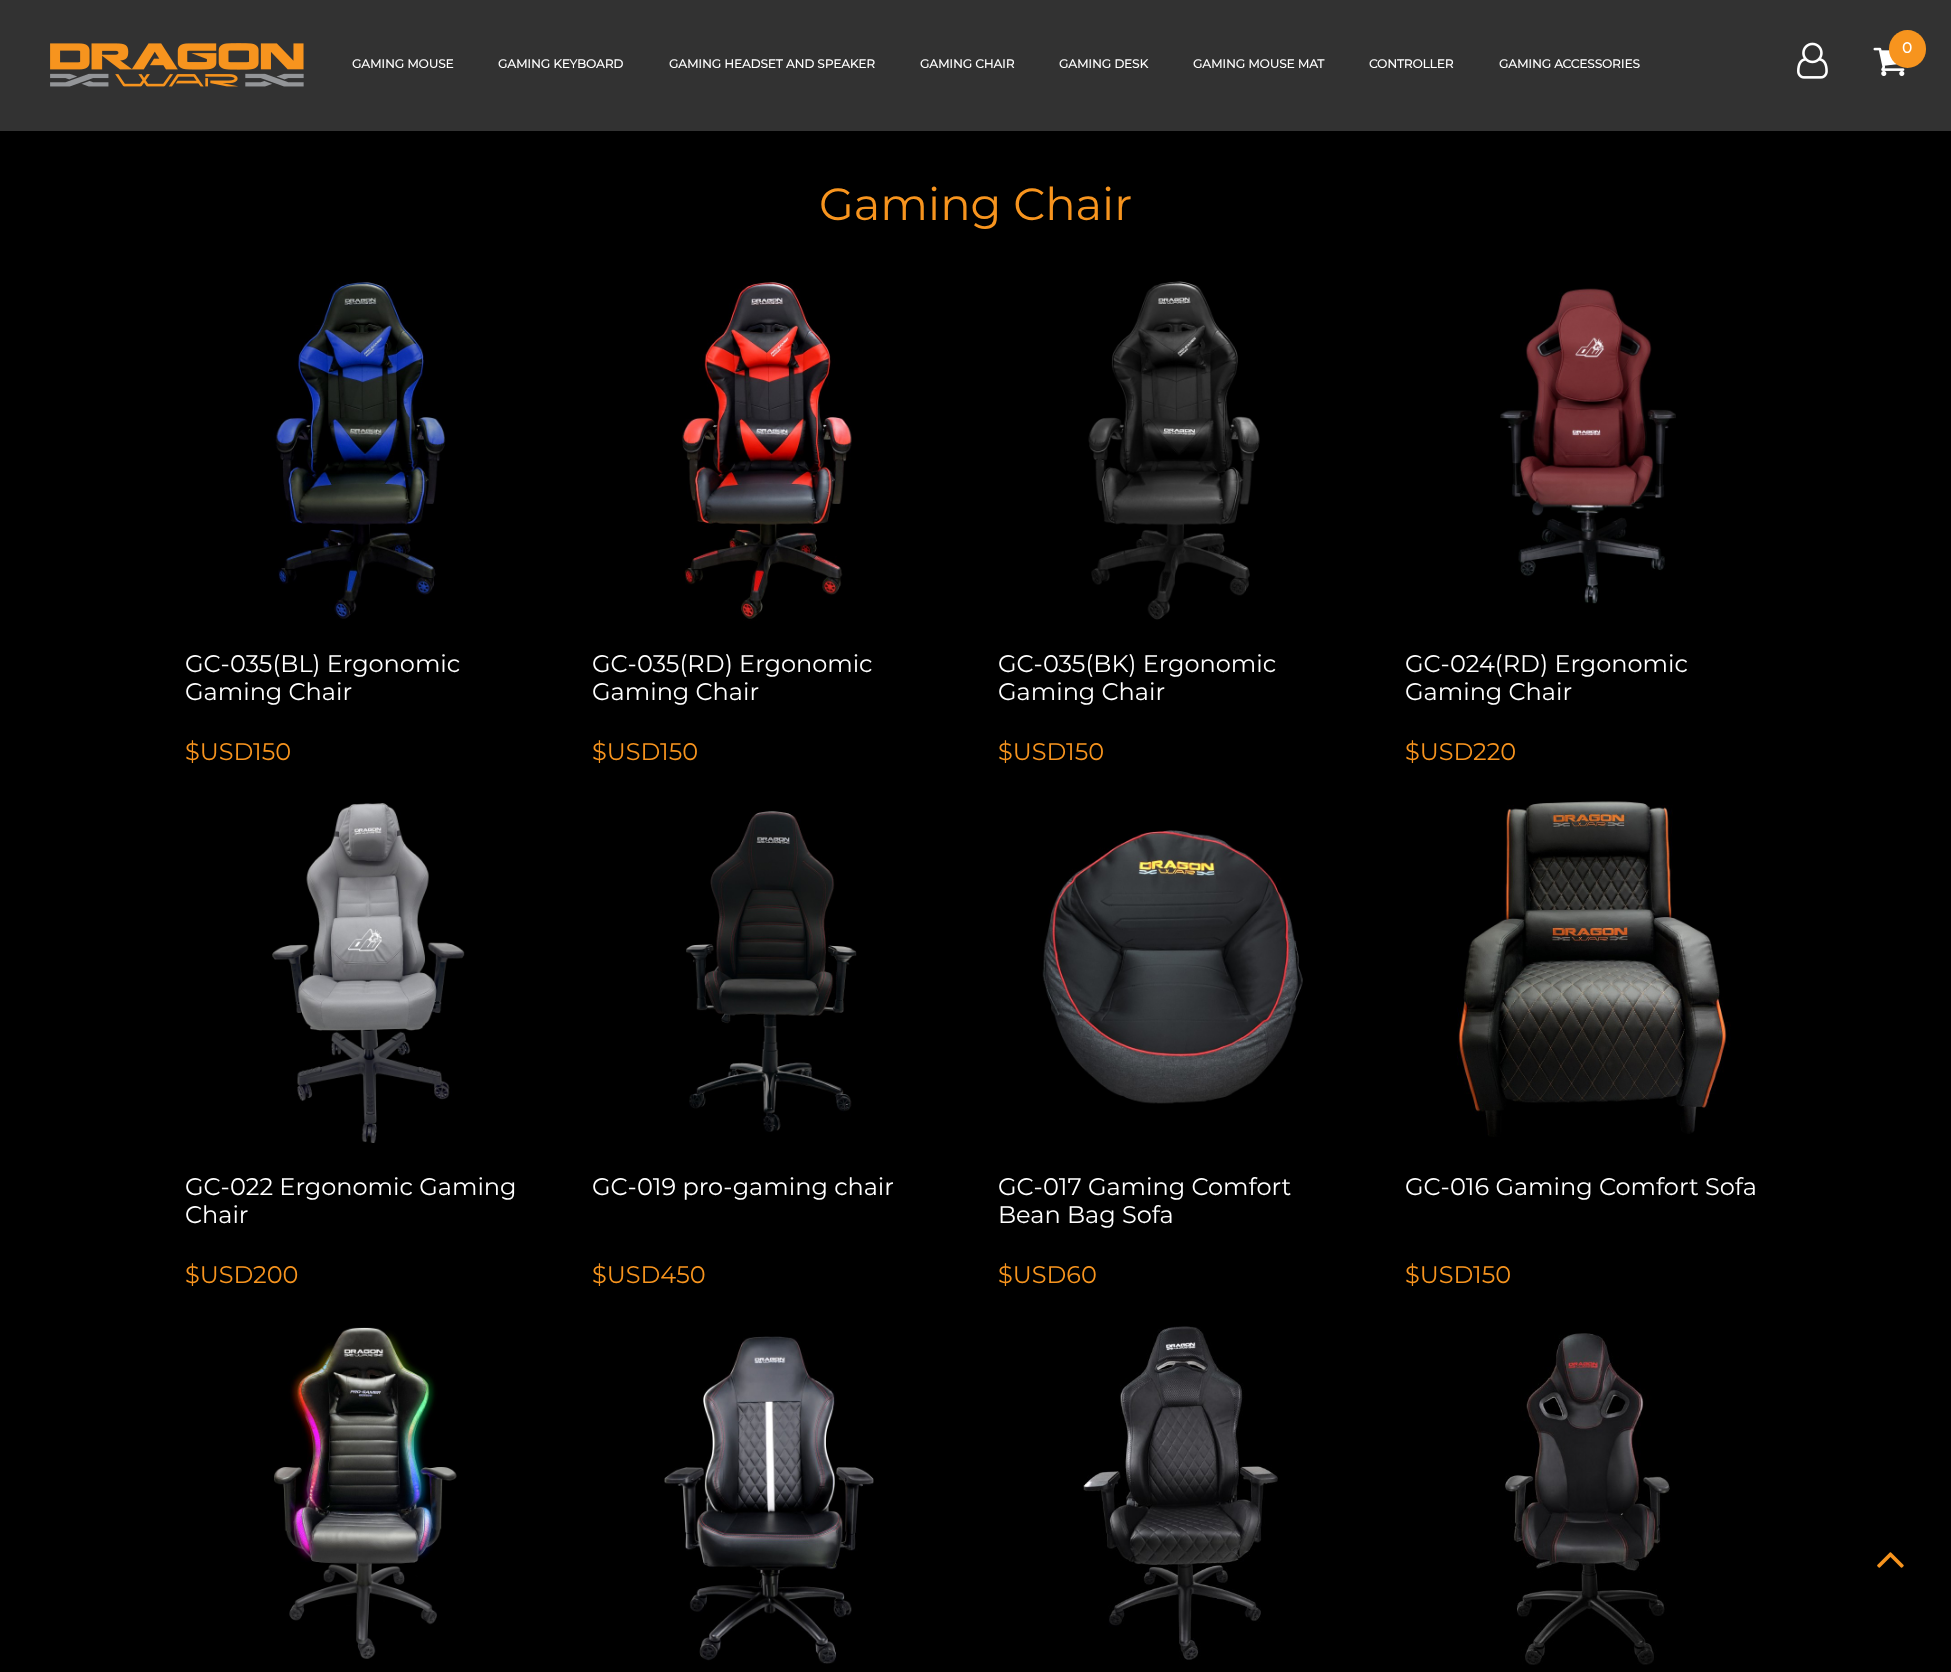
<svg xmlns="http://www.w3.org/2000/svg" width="1951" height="1672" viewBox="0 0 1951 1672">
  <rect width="100%" height="100%" fill="#000000"/>
  <rect x="0" y="0" width="1951" height="131" fill="#323232"/>
  <image x="1797" y="42" width="31" height="37" href="img1.png"/>
  <image x="1873" y="47" width="32" height="30" href="img2.png"/>
  <rect x="1889" y="30" width="37" height="38" rx="18.5" fill="#f7941e"/>
  <text x="1902" y="53" font-family="Montserrat" font-size="15" font-weight="bold" fill="#ffffff">0</text>
  <image x="50" y="43" width="254" height="44" href="img3.png"/>
  <text x="352" y="68" font-family="Montserrat" font-size="12" font-weight="bold" fill="#ffffff">GAMING MOUSE</text>
  <text x="498" y="68" font-family="Montserrat" font-size="12" font-weight="bold" fill="#ffffff">GAMING KEYBOARD</text>
  <text x="669" y="68" font-family="Montserrat" font-size="12" font-weight="bold" fill="#ffffff">GAMING HEADSET AND SPEAKER</text>
  <text x="920" y="68" font-family="Montserrat" font-size="12" font-weight="bold" fill="#ffffff">GAMING CHAIR</text>
  <text x="1059" y="68" font-family="Montserrat" font-size="12" font-weight="bold" fill="#ffffff">GAMING DESK</text>
  <text x="1193" y="68" font-family="Montserrat" font-size="12" font-weight="bold" fill="#ffffff">GAMING MOUSE MAT</text>
  <text x="1369" y="68" font-family="Montserrat" font-size="12" font-weight="bold" fill="#ffffff">CONTROLLER</text>
  <text x="1499" y="68" font-family="Montserrat" font-size="12" font-weight="bold" fill="#ffffff">GAMING ACCESSORIES</text>
  <text x="819" y="220" font-family="Montserrat" font-size="45" font-weight="100" fill="#f7941e">Gaming Chair</text>
  <image x="273" y="281" width="173" height="338" href="img4.png"/>
  <text x="185" y="672" font-family="Montserrat" font-size="24" font-weight="100" fill="#ffffff">GC-035(BL) Ergonomic</text>
  <text x="185" y="700" font-family="Montserrat" font-size="24" font-weight="100" fill="#ffffff">Gaming Chair</text>
  <text x="185" y="760" font-family="Montserrat" font-size="24" font-weight="100" fill="#f7941e">$USD150</text>
  <image x="681" y="282" width="171" height="339" href="img5.png"/>
  <text x="592" y="672" font-family="Montserrat" font-size="24" font-weight="100" fill="#ffffff">GC-035(RD) Ergonomic</text>
  <text x="592" y="700" font-family="Montserrat" font-size="24" font-weight="100" fill="#ffffff">Gaming Chair</text>
  <text x="592" y="760" font-family="Montserrat" font-size="24" font-weight="100" fill="#f7941e">$USD150</text>
  <image x="1088" y="281" width="172" height="339" href="img6.png"/>
  <text x="998" y="672" font-family="Montserrat" font-size="24" font-weight="100" fill="#ffffff">GC-035(BK) Ergonomic</text>
  <text x="998" y="700" font-family="Montserrat" font-size="24" font-weight="100" fill="#ffffff">Gaming Chair</text>
  <text x="998" y="760" font-family="Montserrat" font-size="24" font-weight="100" fill="#f7941e">$USD150</text>
  <image x="1500" y="288" width="176" height="316" href="img7.png"/>
  <text x="1405" y="672" font-family="Montserrat" font-size="24" font-weight="100" fill="#ffffff">GC-024(RD) Ergonomic</text>
  <text x="1405" y="700" font-family="Montserrat" font-size="24" font-weight="100" fill="#ffffff">Gaming Chair</text>
  <text x="1405" y="760" font-family="Montserrat" font-size="24" font-weight="100" fill="#f7941e">$USD220</text>
  <image x="272" y="803" width="193" height="340" href="img8.png"/>
  <text x="185" y="1195" font-family="Montserrat" font-size="24" font-weight="100" fill="#ffffff">GC-022 Ergonomic Gaming</text>
  <text x="185" y="1223" font-family="Montserrat" font-size="24" font-weight="100" fill="#ffffff">Chair</text>
  <text x="185" y="1283" font-family="Montserrat" font-size="24" font-weight="100" fill="#f7941e">$USD200</text>
  <image x="686" y="811" width="171" height="321" href="img9.png"/>
  <text x="592" y="1195" font-family="Montserrat" font-size="24" font-weight="100" fill="#ffffff">GC-019 pro-gaming chair</text>
  <text x="592" y="1283" font-family="Montserrat" font-size="24" font-weight="100" fill="#f7941e">$USD450</text>
  <image x="1042" y="830" width="261" height="274" href="img10.png"/>
  <text x="998" y="1195" font-family="Montserrat" font-size="24" font-weight="100" fill="#ffffff">GC-017 Gaming Comfort</text>
  <text x="998" y="1223" font-family="Montserrat" font-size="24" font-weight="100" fill="#ffffff">Bean Bag Sofa</text>
  <text x="998" y="1283" font-family="Montserrat" font-size="24" font-weight="100" fill="#f7941e">$USD60</text>
  <image x="1457" y="801" width="274" height="336" href="img11.png"/>
  <text x="1405" y="1195" font-family="Montserrat" font-size="24" font-weight="100" fill="#ffffff">GC-016 Gaming Comfort Sofa</text>
  <text x="1405" y="1283" font-family="Montserrat" font-size="24" font-weight="100" fill="#f7941e">$USD150</text>
  <image x="274" y="1327" width="183" height="332" href="img12.png"/>
  <image x="664" y="1336" width="210" height="328" href="img13.png"/>
  <image x="1083" y="1326" width="195" height="334" href="img14.png"/>
  <image x="1505" y="1333" width="165" height="332" href="img15.png"/>
  <image x="1877" y="1552" width="27" height="16" href="img16.png"/>
</svg>
